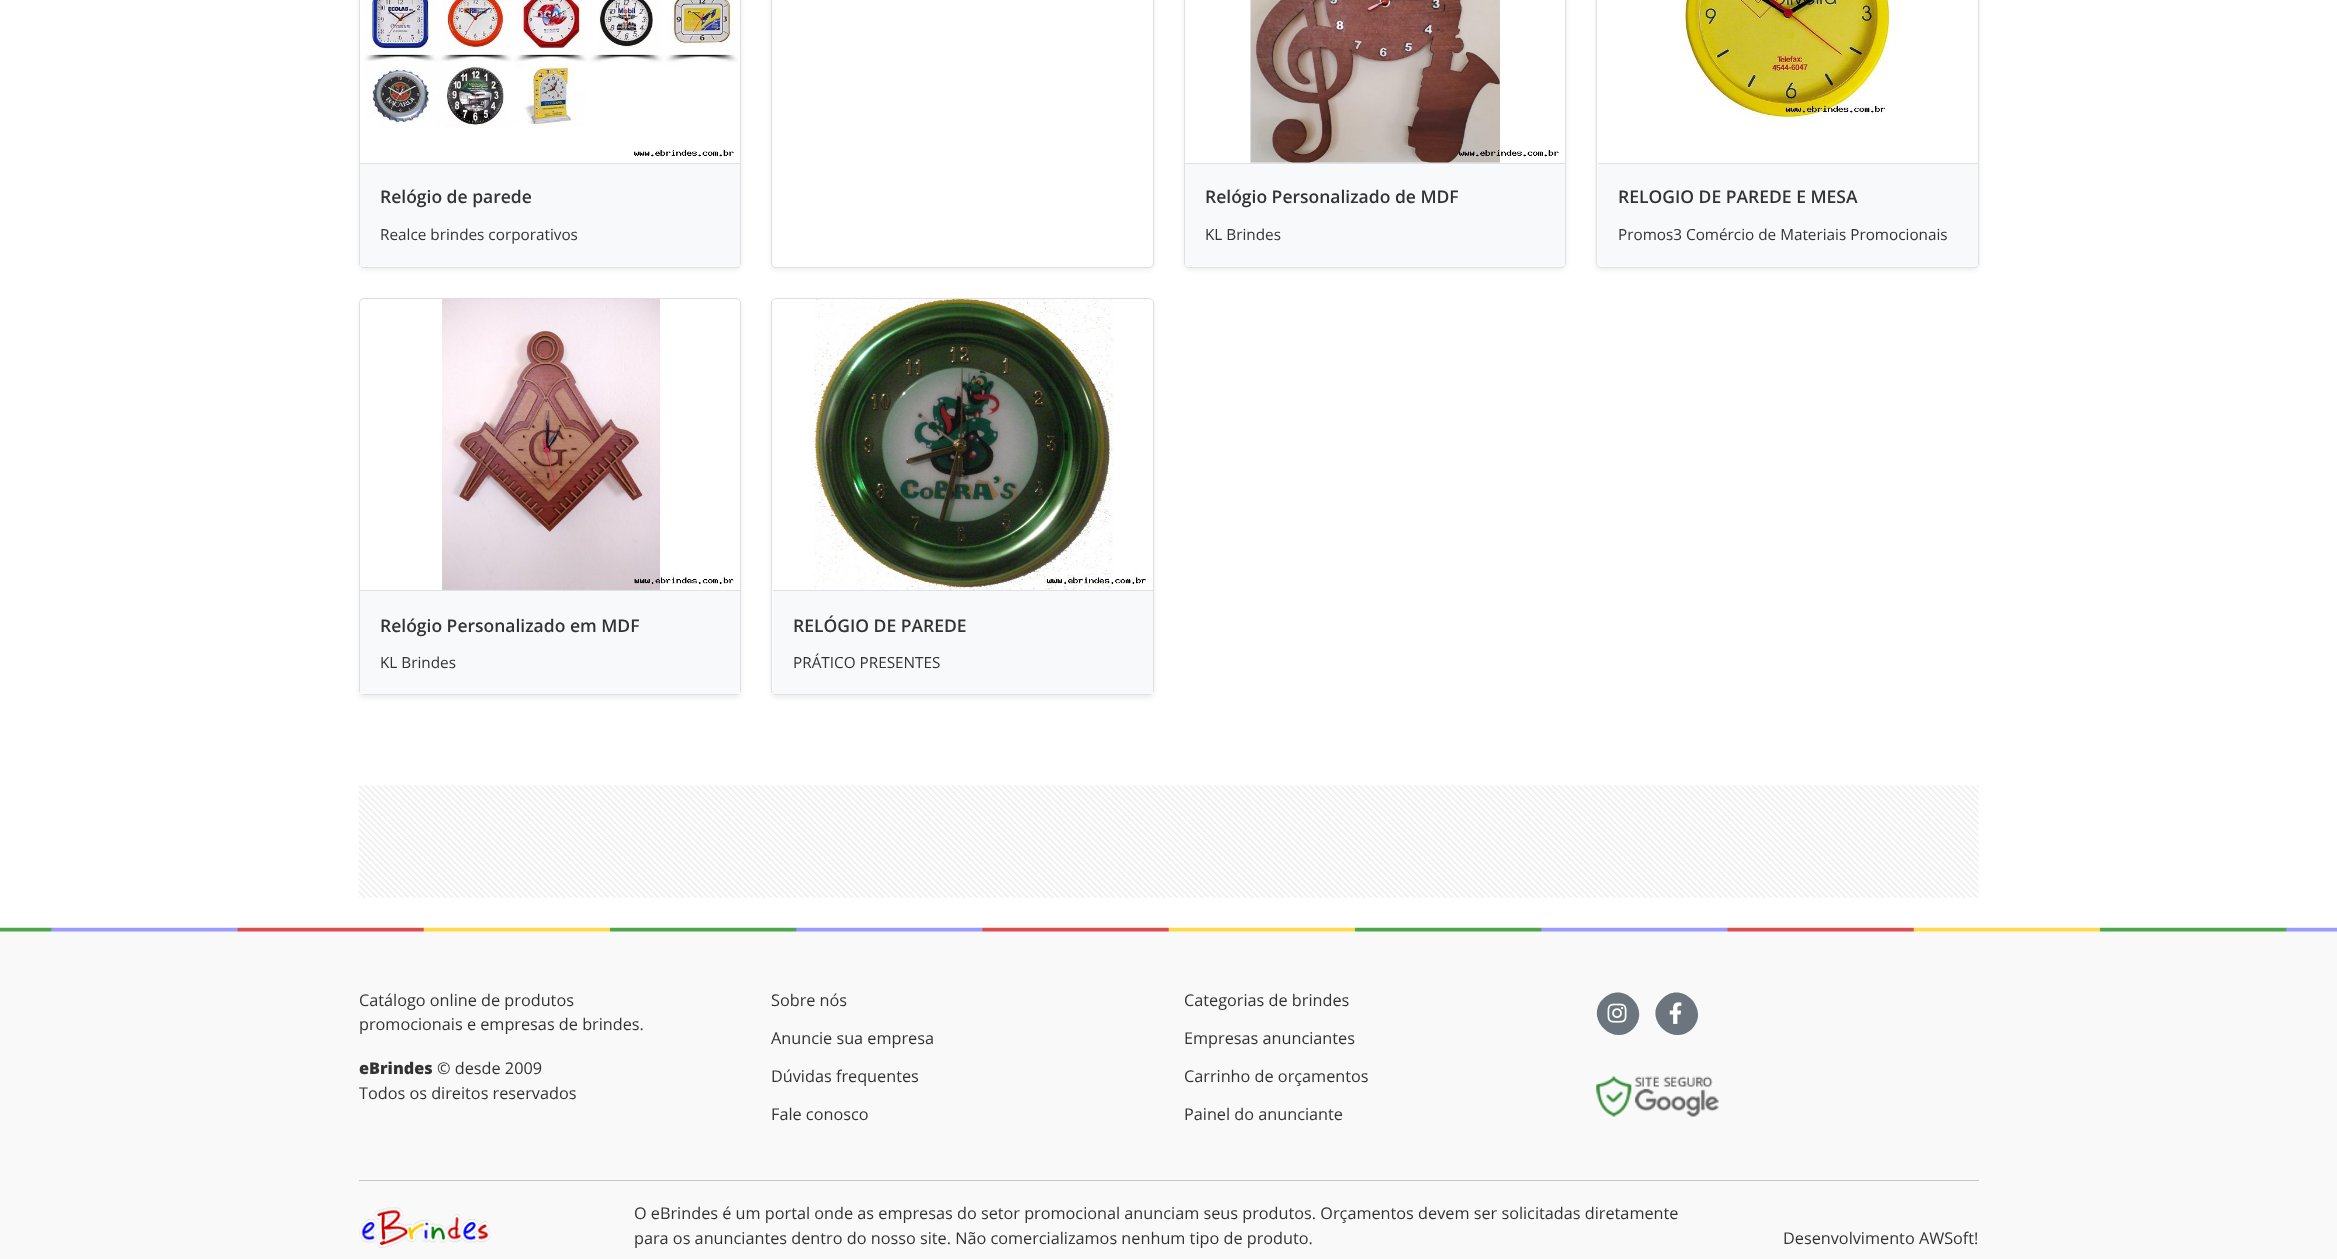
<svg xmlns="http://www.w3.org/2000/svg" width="2337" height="1259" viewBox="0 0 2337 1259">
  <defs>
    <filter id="blur1" x="-50%" y="-200%" width="200%" height="500%"><feGaussianBlur stdDeviation="2.5"/></filter>
  </defs>
  <rect width="100%" height="100%" fill="#ffffff"/>
  <rect x="359" y="-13" width="382" height="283" rx="5" fill="#000000" fill-opacity="0.07" filter="url(#blur1)"/>
  <rect x="359" y="-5" width="382" height="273" rx="5" fill="#ffffff"/>
  <rect x="359.5" y="-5.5" width="381" height="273" rx="4.5" fill="none" stroke="#000000" stroke-opacity="0.12"/>
  <image x="364" y="0" width="374" height="160" href="img1.png"/>
  <rect x="360" y="163" width="380" height="1" fill="#dee2e6"/>
  <rect x="360" y="164" width="380" height="102" fill="#f8f9fa"/>
  <text x="380" y="203" font-family="Open Sans" font-size="17.5" font-weight="600" fill="#333333">Relógio de parede</text>
  <text x="380" y="240" font-family="Open Sans" font-size="15.3" fill="#333333">Realce brindes corporativos</text>
  <rect x="771" y="-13" width="383" height="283" rx="5" fill="#000000" fill-opacity="0.07" filter="url(#blur1)"/>
  <rect x="771" y="-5" width="383" height="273" rx="5" fill="#ffffff"/>
  <rect x="771.5" y="-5.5" width="382" height="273" rx="4.5" fill="none" stroke="#000000" stroke-opacity="0.12"/>
  <rect x="1184" y="-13" width="382" height="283" rx="5" fill="#000000" fill-opacity="0.07" filter="url(#blur1)"/>
  <rect x="1184" y="-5" width="382" height="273" rx="5" fill="#ffffff"/>
  <rect x="1184.5" y="-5.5" width="381" height="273" rx="4.5" fill="none" stroke="#000000" stroke-opacity="0.12"/>
  <image x="1250" y="0" width="309" height="163" href="img2.png"/>
  <rect x="1185" y="163" width="380" height="1" fill="#dee2e6"/>
  <rect x="1185" y="164" width="380" height="102" fill="#f8f9fa"/>
  <text x="1205" y="203" font-family="Open Sans" font-size="17.5" font-weight="600" fill="#333333">Relógio Personalizado de MDF</text>
  <text x="1205" y="240" font-family="Open Sans" font-size="15.3" fill="#333333">KL Brindes</text>
  <rect x="1596" y="-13" width="383" height="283" rx="5" fill="#000000" fill-opacity="0.07" filter="url(#blur1)"/>
  <rect x="1596" y="-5" width="383" height="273" rx="5" fill="#ffffff"/>
  <rect x="1596.5" y="-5.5" width="382" height="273" rx="4.5" fill="none" stroke="#000000" stroke-opacity="0.12"/>
  <image x="1682" y="0" width="215" height="123" href="img3.png"/>
  <rect x="1598" y="163" width="380" height="1" fill="#dee2e6"/>
  <rect x="1598" y="164" width="380" height="102" fill="#f8f9fa"/>
  <text x="1618" y="203" font-family="Open Sans" font-size="17.5" font-weight="600" fill="#333333">RELOGIO DE PAREDE E MESA</text>
  <text x="1618" y="240" font-family="Open Sans" font-size="15.3" fill="#333333">Promos3 Comércio de Materiais Promocionais</text>
  <rect x="359" y="300" width="382" height="398" rx="5" fill="#000000" fill-opacity="0.07" filter="url(#blur1)"/>
  <rect x="359.5" y="298.5" width="381" height="396" rx="4.5" fill="#ffffff" stroke="#dfdfdf"/>
  <image x="442" y="299" width="292" height="291" href="img4.png"/>
  <rect x="360" y="590" width="380" height="1" fill="#dee2e6"/>
  <rect x="360" y="591" width="380" height="103" fill="#f8f9fa"/>
  <text x="380" y="632" font-family="Open Sans" font-size="17.5" font-weight="600" fill="#333333">Relógio Personalizado em MDF</text>
  <text x="380" y="668" font-family="Open Sans" font-size="15.3" fill="#333333">KL Brindes</text>
  <rect x="771" y="300" width="383" height="398" rx="5" fill="#000000" fill-opacity="0.07" filter="url(#blur1)"/>
  <rect x="771" y="298" width="383" height="397" rx="5" fill="#ffffff"/>
  <rect x="771.5" y="298.5" width="382" height="396" rx="4.5" fill="none" stroke="#000000" stroke-opacity="0.12"/>
  <image x="811" y="299" width="335" height="291" href="img5.png"/>
  <rect x="773" y="590" width="380" height="1" fill="#dee2e6"/>
  <rect x="773" y="591" width="380" height="103" fill="#f8f9fa"/>
  <text x="793" y="632" font-family="Open Sans" font-size="17.5" font-weight="600" fill="#333333">RELÓGIO DE PAREDE</text>
  <text x="793" y="668" font-family="Open Sans" font-size="15.3" fill="#333333">PRÁTICO PRESENTES</text>
  <image x="358" y="785" width="1621" height="113" href="img6.png"/>
  <rect x="0" y="931" width="2337" height="328" fill="#f9f9f9"/>
  <image x="0" y="927" width="2337" height="5" href="img7.png"/>
  <text x="359" y="1006" font-family="Open Sans" font-size="16.25" fill="#333333">Catálogo online de produtos</text>
  <text x="359" y="1030" font-family="Open Sans" font-size="16.25" fill="#333333">promocionais e empresas de brindes.</text>
  <text x="359" y="1074" font-family="Open Sans" font-size="16.25" font-weight="800" fill="#333333">eBrindes</text>
  <text x="437" y="1074" font-family="Open Sans" font-size="16.25" fill="#333333">© desde 2009</text>
  <text x="359" y="1099" font-family="Open Sans" font-size="16.25" fill="#333333">Todos os direitos reservados</text>
  <text x="771" y="1006" font-family="Open Sans" font-size="16.25" fill="#333333">Sobre nós</text>
  <text x="771" y="1044" font-family="Open Sans" font-size="16.25" fill="#333333">Anuncie sua empresa</text>
  <text x="771" y="1082" font-family="Open Sans" font-size="16.25" fill="#333333">Dúvidas frequentes</text>
  <text x="771" y="1120" font-family="Open Sans" font-size="16.25" fill="#333333">Fale conosco</text>
  <text x="1184" y="1006" font-family="Open Sans" font-size="16.25" fill="#333333">Categorias de brindes</text>
  <text x="1184" y="1044" font-family="Open Sans" font-size="16.25" fill="#333333">Empresas anunciantes</text>
  <text x="1184" y="1082" font-family="Open Sans" font-size="16.25" fill="#333333">Carrinho de orçamentos</text>
  <text x="1184" y="1120" font-family="Open Sans" font-size="16.25" fill="#333333">Painel do anunciante</text>
  <path d="M1603 999C1623 979 1652 1009 1633 1029C1613 1048 1584 1018 1603 999Z" fill="#6c757d"/>
  <image x="1607" y="1003" width="20" height="20" href="img8.png"/>
  <path d="M1662 999C1681 979 1711 1009 1692 1029C1672 1048 1642 1018 1662 999Z" fill="#6c757d"/>
  <image x="1669" y="1002" width="13" height="22" href="img9.png"/>
  <image x="1596" y="1076" width="123" height="41" href="img10.png"/>
  <rect x="359" y="1180" width="1620" height="1" fill="#c8c8c8"/>
  <image x="359" y="1207" width="132" height="41" href="img11.png"/>
  <text x="634" y="1219" font-family="Open Sans" font-size="16.25" fill="#333333">O eBrindes é um portal onde as empresas do setor promocional anunciam seus produtos. Orçamentos devem ser solicitadas diretamente</text>
  <text x="634" y="1244" font-family="Open Sans" font-size="16.25" fill="#333333">para os anunciantes dentro do nosso site. Não comercializamos nenhum tipo de produto.</text>
  <text x="1783" y="1244" font-family="Open Sans" font-size="16.25" fill="#333333">Desenvolvimento AWSoft!</text>
</svg>
